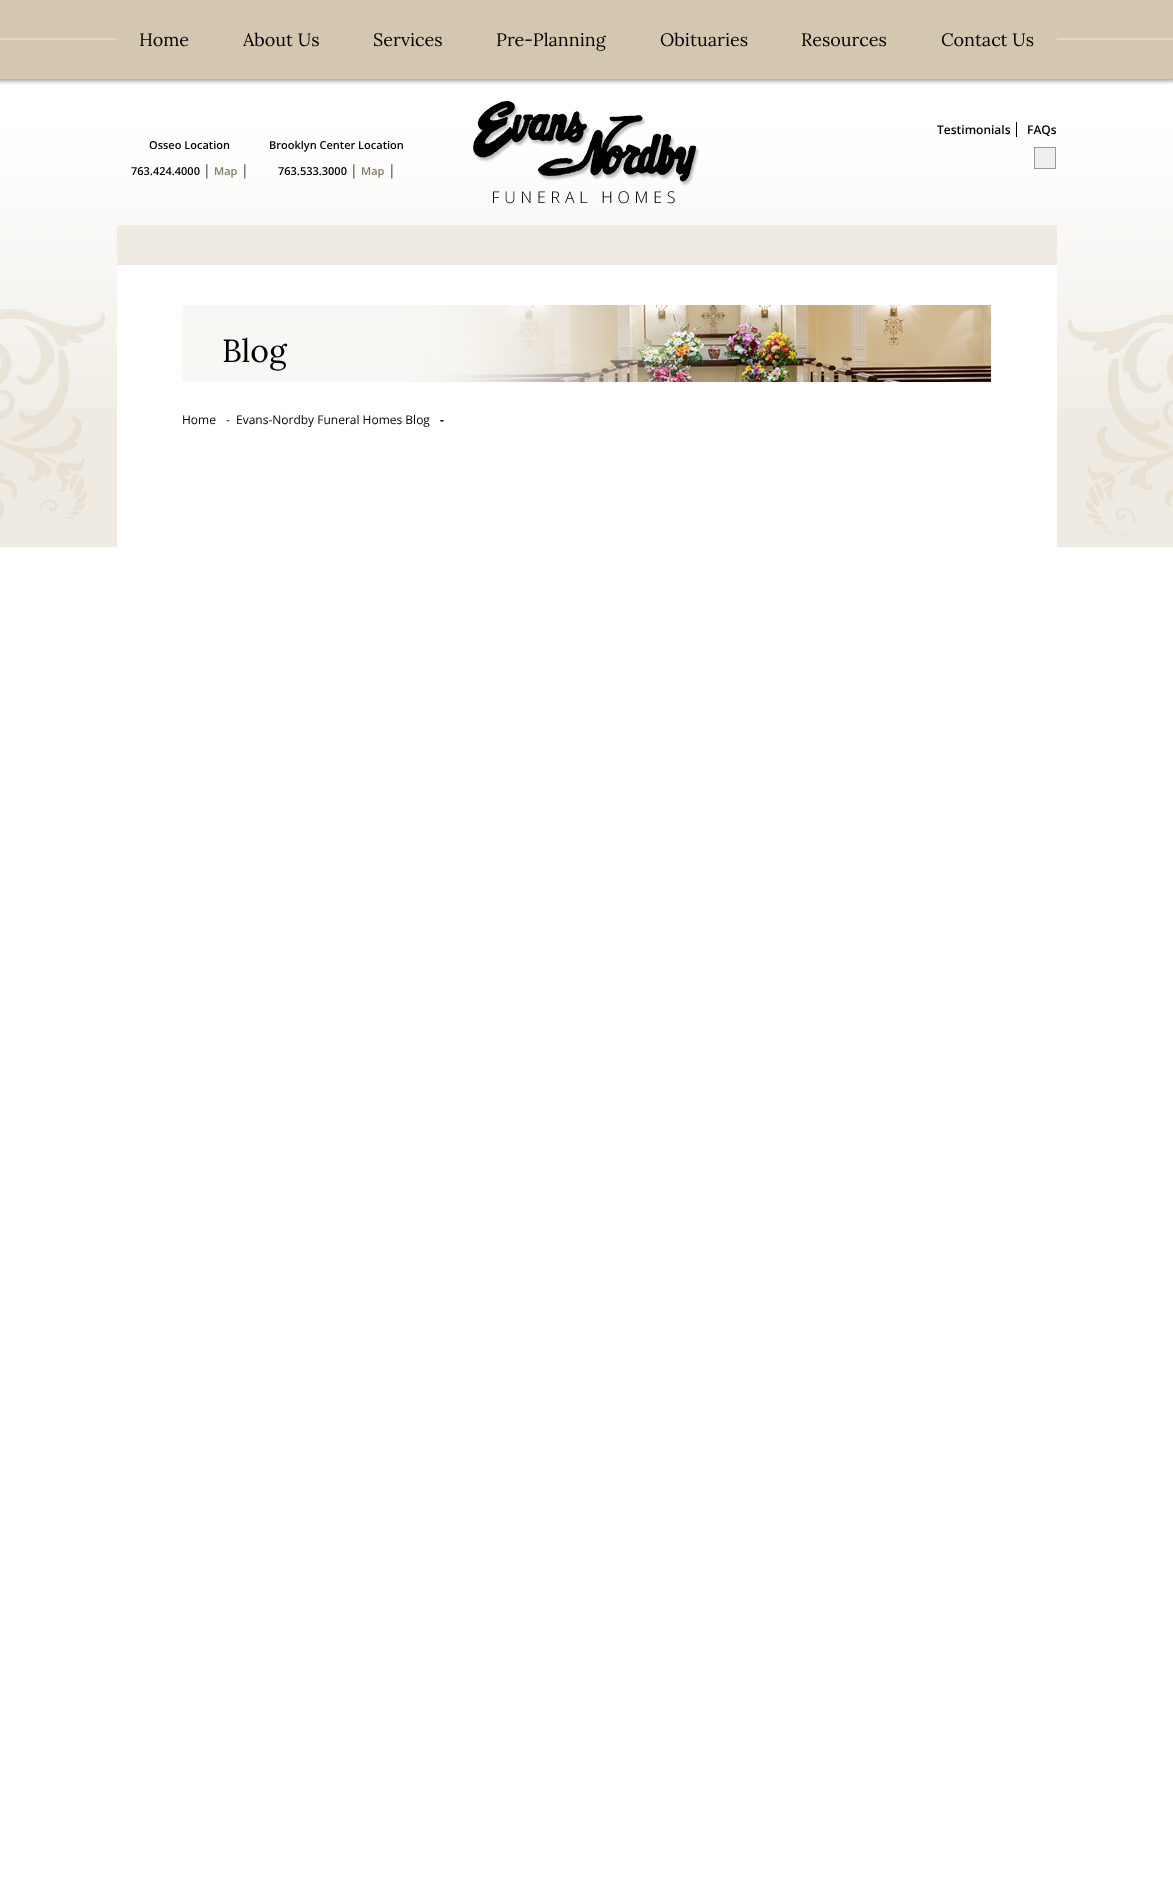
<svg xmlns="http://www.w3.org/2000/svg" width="1173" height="1892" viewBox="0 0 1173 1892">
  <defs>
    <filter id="blur1" x="-50%" y="-200%" width="200%" height="500%"><feGaussianBlur stdDeviation="2"/></filter>
  </defs>
  <rect width="100%" height="100%" fill="#ffffff"/>
  <rect x="0" y="105" width="1173" height="442" fill="#efebe3"/>
  <image x="0" y="79" width="1173" height="330" href="img1.png"/>
  <rect x="-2" y="-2" width="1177" height="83" fill="#000000" fill-opacity="0.4" filter="url(#blur1)"/>
  <rect x="0" y="0" width="1173" height="79" fill="#d3c7af"/>
  <rect x="0" y="38" width="1173" height="2" fill="#e1d8c8"/>
  <rect x="117" y="38" width="940" height="2" fill="#d3c7af"/>
  <text x="139" y="46" font-family="Lora" font-size="18" fill="#000000">Home</text>
  <text x="243" y="46" font-family="Lora" font-size="18" fill="#000000">About Us</text>
  <text x="373" y="46" font-family="Lora" font-size="18" fill="#000000">Services</text>
  <text x="496" y="46" font-family="Lora" font-size="18" fill="#000000">Pre-Planning</text>
  <text x="660" y="46" font-family="Lora" font-size="18" fill="#000000">Obituaries</text>
  <text x="801" y="46" font-family="Lora" font-size="18" fill="#000000">Resources</text>
  <text x="941" y="46" font-family="Lora" font-size="18" fill="#000000">Contact Us</text>
  <image x="0" y="309" width="1173" height="227" href="img2.png"/>
  <image x="473" y="101" width="227" height="103" href="img3.png"/>
  <rect x="1016" y="122" width="1" height="15" fill="#000000"/>
  <text x="937" y="134" font-family="Open Sans" font-size="12" font-weight="600" fill="#000000">Testimonials</text>
  <text x="1027" y="134" font-family="Open Sans" font-size="12" font-weight="600" fill="#000000">FAQs</text>
  <rect x="1034.5" y="147.5" width="21" height="21" fill="#eeeeee" stroke="#999999"/>
  <text x="149" y="149" font-family="Open Sans" font-size="11" font-weight="600" fill="#000000">Osseo Location</text>
  <text x="131" y="175" font-family="Open Sans" font-size="11" font-weight="600" fill="#000000">763.424.4000</text>
  <text x="203" y="175" font-family="Open Sans" font-size="14" fill="#333333">|</text>
  <text x="214" y="175" font-family="Open Sans" font-size="11" font-weight="600" fill="#817968">Map</text>
  <text x="241" y="175" font-family="Open Sans" font-size="14" fill="#333333">|</text>
  <text x="269" y="149" font-family="Open Sans" font-size="11" font-weight="600" fill="#000000">Brooklyn Center Location</text>
  <text x="278" y="175" font-family="Open Sans" font-size="11" font-weight="600" fill="#000000">763.533.3000</text>
  <text x="350" y="175" font-family="Open Sans" font-size="14" fill="#333333">|</text>
  <text x="361" y="175" font-family="Open Sans" font-size="11" font-weight="600" fill="#817968">Map</text>
  <text x="388" y="175" font-family="Open Sans" font-size="14" fill="#333333">|</text>
  <rect x="117" y="265" width="940" height="282" fill="#ffffff"/>
  <rect x="117" y="225" width="940" height="40" fill="#efebe3"/>
  <image x="182" y="305" width="809" height="77" href="img4.png"/>
  <text x="222" y="362" font-family="Lora" font-size="32" fill="#000000">Blog</text>
  <text x="182" y="424" font-family="Open Sans" font-size="12" fill="#000000">Home</text>
  <text x="226" y="424" font-family="Open Sans" font-size="12" fill="#000000">-</text>
  <text x="236" y="424" font-family="Open Sans" font-size="12" fill="#000000">Evans-Nordby Funeral Homes Blog</text>
  <text x="440" y="424" font-family="Open Sans" font-size="12" font-weight="bold" fill="#000000">-</text>
</svg>
